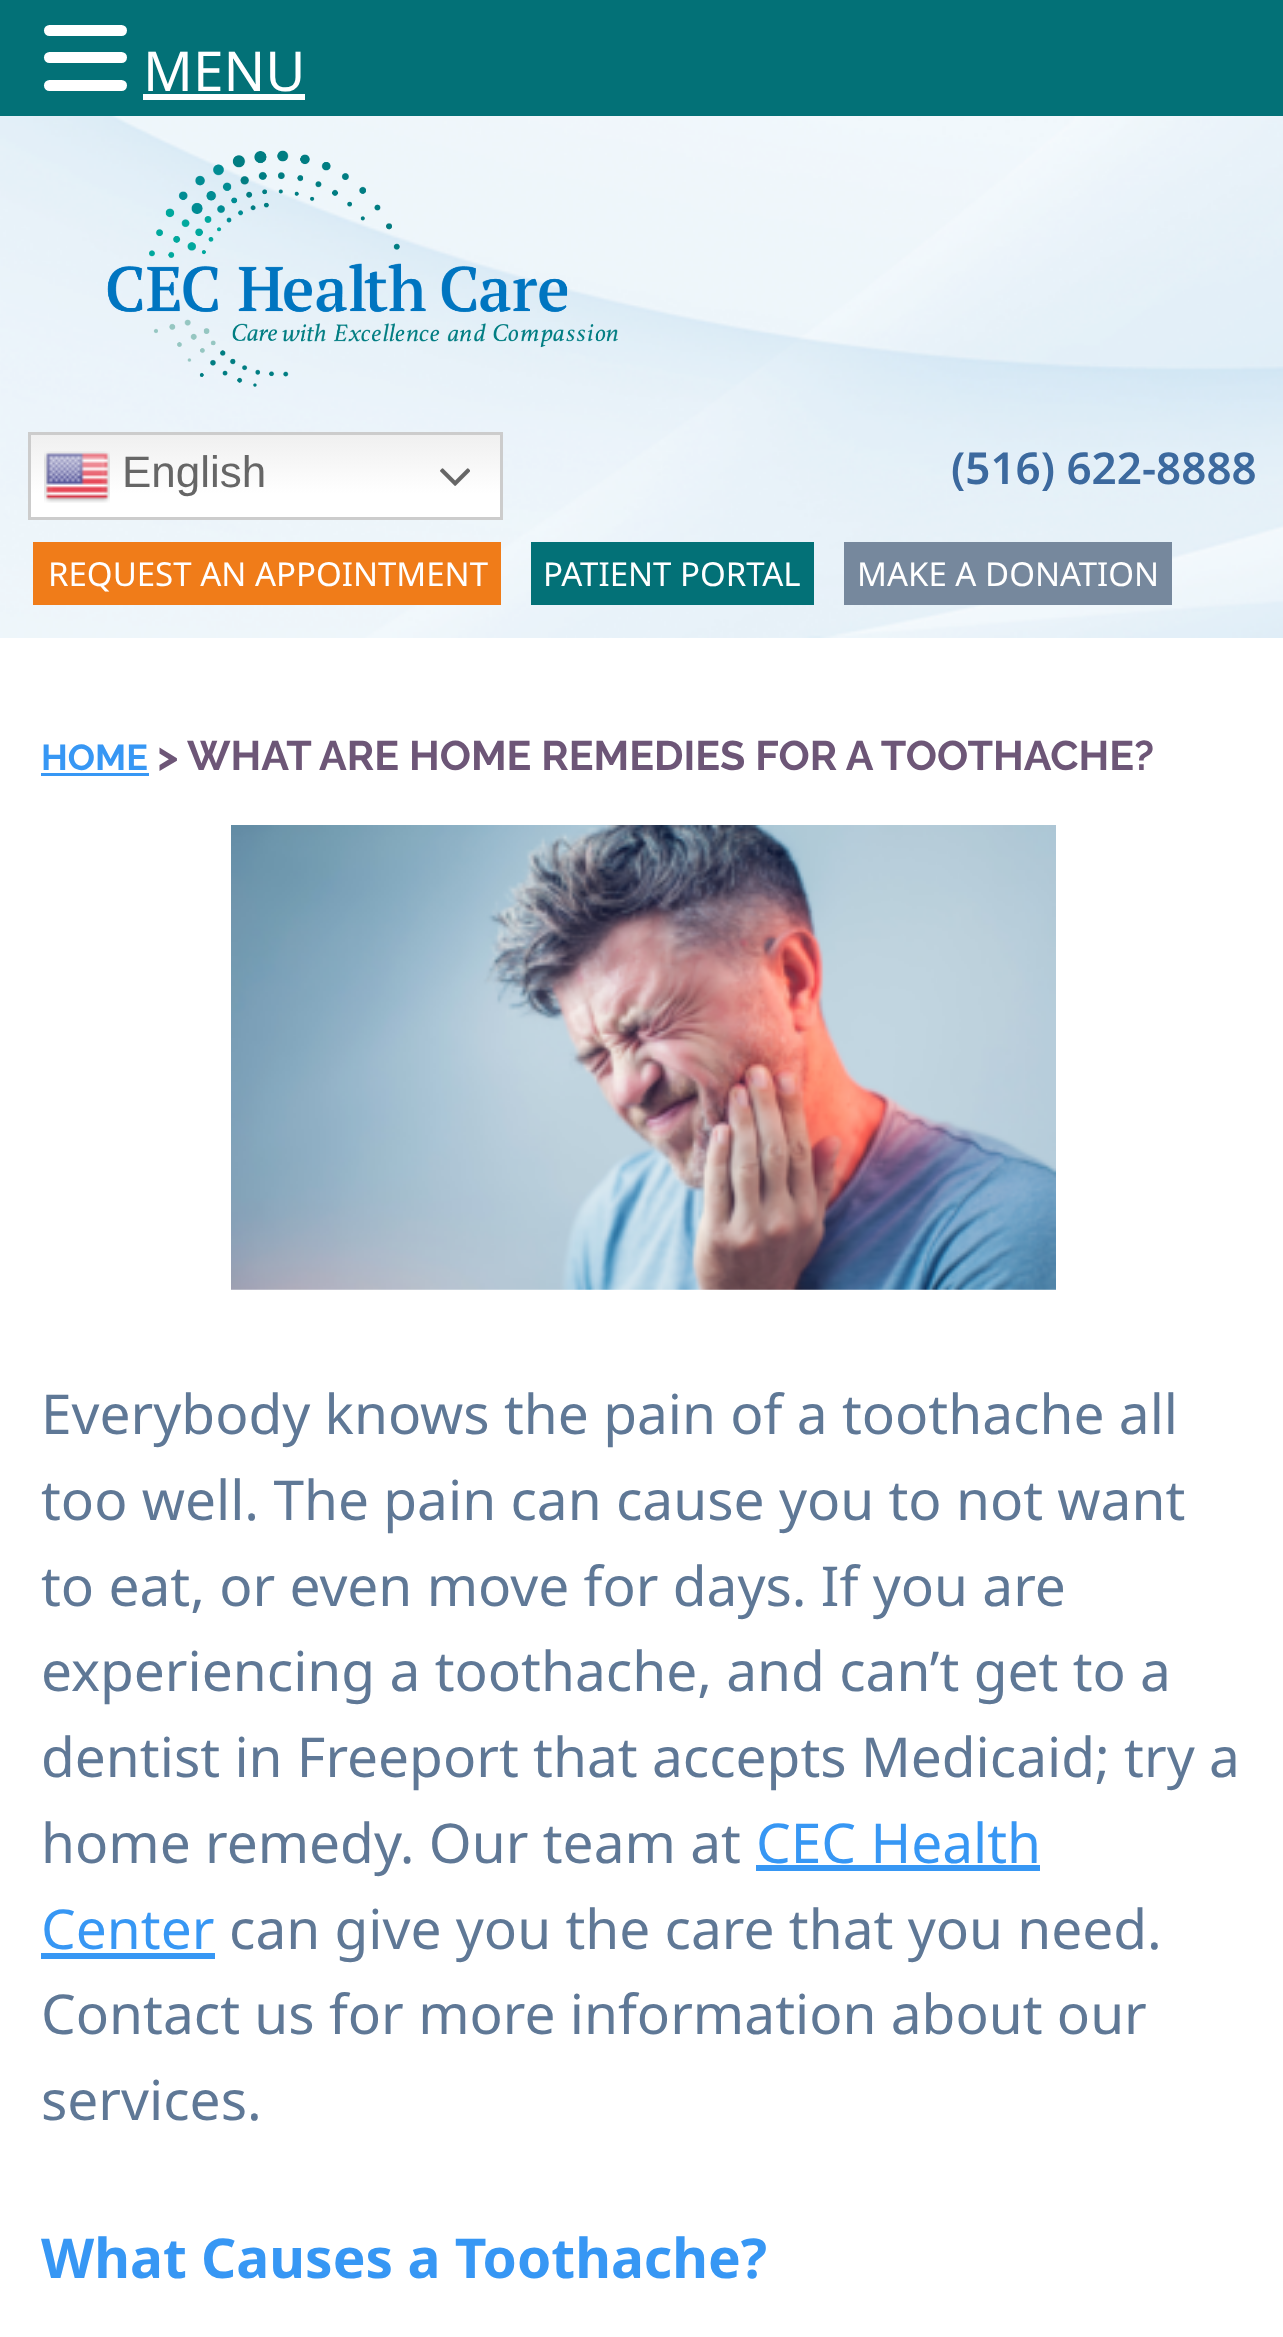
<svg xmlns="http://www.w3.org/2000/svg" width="1283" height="2337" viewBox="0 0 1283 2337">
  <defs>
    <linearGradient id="g1" gradientUnits="userSpaceOnUse" x1="265" y1="432" x2="265" y2="520"><stop offset="0" stop-color="#efefef"/><stop offset="0.7" stop-color="#ffffff"/></linearGradient>
  </defs>
  <rect width="100%" height="100%" fill="#ffffff"/>
  <rect x="0" y="0" width="1283" height="116" fill="#037177"/>
  <rect x="44" y="25" width="83" height="11" rx="5.5" fill="#ffffff"/>
  <rect x="44" y="52" width="83" height="11" rx="5.5" fill="#ffffff"/>
  <rect x="44" y="80" width="83" height="11" rx="5.5" fill="#ffffff"/>
  <text x="143" y="91" font-family="Noto Sans" font-size="55" fill="#ffffff">MENU</text>
  <rect x="143" y="94" width="162" height="6" fill="#ffffff"/>
  <image x="0" y="116" width="1283" height="522" href="img1.png"/>
  <image x="107" y="150" width="511" height="237" href="img2.png"/>
  <rect x="31" y="435" width="469" height="82" fill="url(#g1)"/>
  <rect x="29.5" y="433.5" width="472" height="85" fill="none" stroke="#cccccc" stroke-width="3"/>
  <image x="44" y="451" width="66" height="52" href="img3.png"/>
  <text x="122" y="487" font-family="Liberation Sans" font-size="44" fill="#666666">English</text>
  <image x="440" y="468" width="30" height="18" href="img4.png"/>
  <text x="951" y="484" font-family="Noto Sans" font-size="44" font-weight="600" fill="#3c699e">(516) 622-8888</text>
  <rect x="33" y="542" width="468" height="63" fill="#f07c19"/>
  <text x="48" y="586" font-family="Noto Sans" font-size="33" fill="#ffffff">REQUEST AN APPOINTMENT</text>
  <rect x="531" y="542" width="283" height="63" fill="#037177"/>
  <text x="543" y="586" font-family="Noto Sans" font-size="33" fill="#ffffff">PATIENT PORTAL</text>
  <rect x="844" y="542" width="328" height="63" fill="#76889d"/>
  <text x="857" y="586" font-family="Noto Sans" font-size="33" fill="#ffffff">MAKE A DONATION</text>
  <text x="41" y="770" font-family="Raleway" font-size="36" font-weight="bold" fill="#3797f4">HOME</text>
  <rect x="41" y="773" width="108" height="3" fill="#3797f4"/>
  <text x="157" y="770" font-family="Raleway" font-size="41.25" font-weight="bold" fill="#6d5677">&gt;</text>
  <text x="187" y="770" font-family="Raleway" font-size="41.25" font-weight="bold" fill="#6d5677">WHAT ARE HOME REMEDIES FOR A TOOTHACHE?</text>
  <image x="231" y="825" width="825" height="465" href="img5.png"/>
  <text x="41" y="1434" font-family="Noto Sans" font-size="55" fill="#5f7896">Everybody knows the pain of a toothache all</text>
  <text x="41" y="1520" font-family="Noto Sans" font-size="55" fill="#5f7896">too well. The pain can cause you to not want</text>
  <text x="41" y="1606" font-family="Noto Sans" font-size="55" fill="#5f7896">to eat, or even move for days. If you are</text>
  <text x="41" y="1691" font-family="Noto Sans" font-size="55" fill="#5f7896">experiencing a toothache, and can’t get to a</text>
  <text x="41" y="1777" font-family="Noto Sans" font-size="55" fill="#5f7896">dentist in Freeport that accepts Medicaid; try a</text>
  <text x="41" y="1863" font-family="Noto Sans" font-size="55" fill="#5f7896">home remedy. Our team at</text>
  <text x="756" y="1863" font-family="Noto Sans" font-size="55" fill="#3797f4">CEC Health</text>
  <rect x="756" y="1865" width="284" height="6" fill="#3797f4"/>
  <text x="41" y="1949" font-family="Noto Sans" font-size="55" fill="#3797f4">Center</text>
  <rect x="41" y="1953" width="174" height="6" fill="#3797f4"/>
  <text x="229" y="1949" font-family="Noto Sans" font-size="55" fill="#5f7896">can give you the care that you need.</text>
  <text x="41" y="2034" font-family="Noto Sans" font-size="55" fill="#5f7896">Contact us for more information about our</text>
  <text x="41" y="2120" font-family="Noto Sans" font-size="55" fill="#5f7896">services.</text>
  <text x="41" y="2278" font-family="Noto Sans" font-size="55" font-weight="bold" fill="#3797f4">What Causes a Toothache?</text>
</svg>
